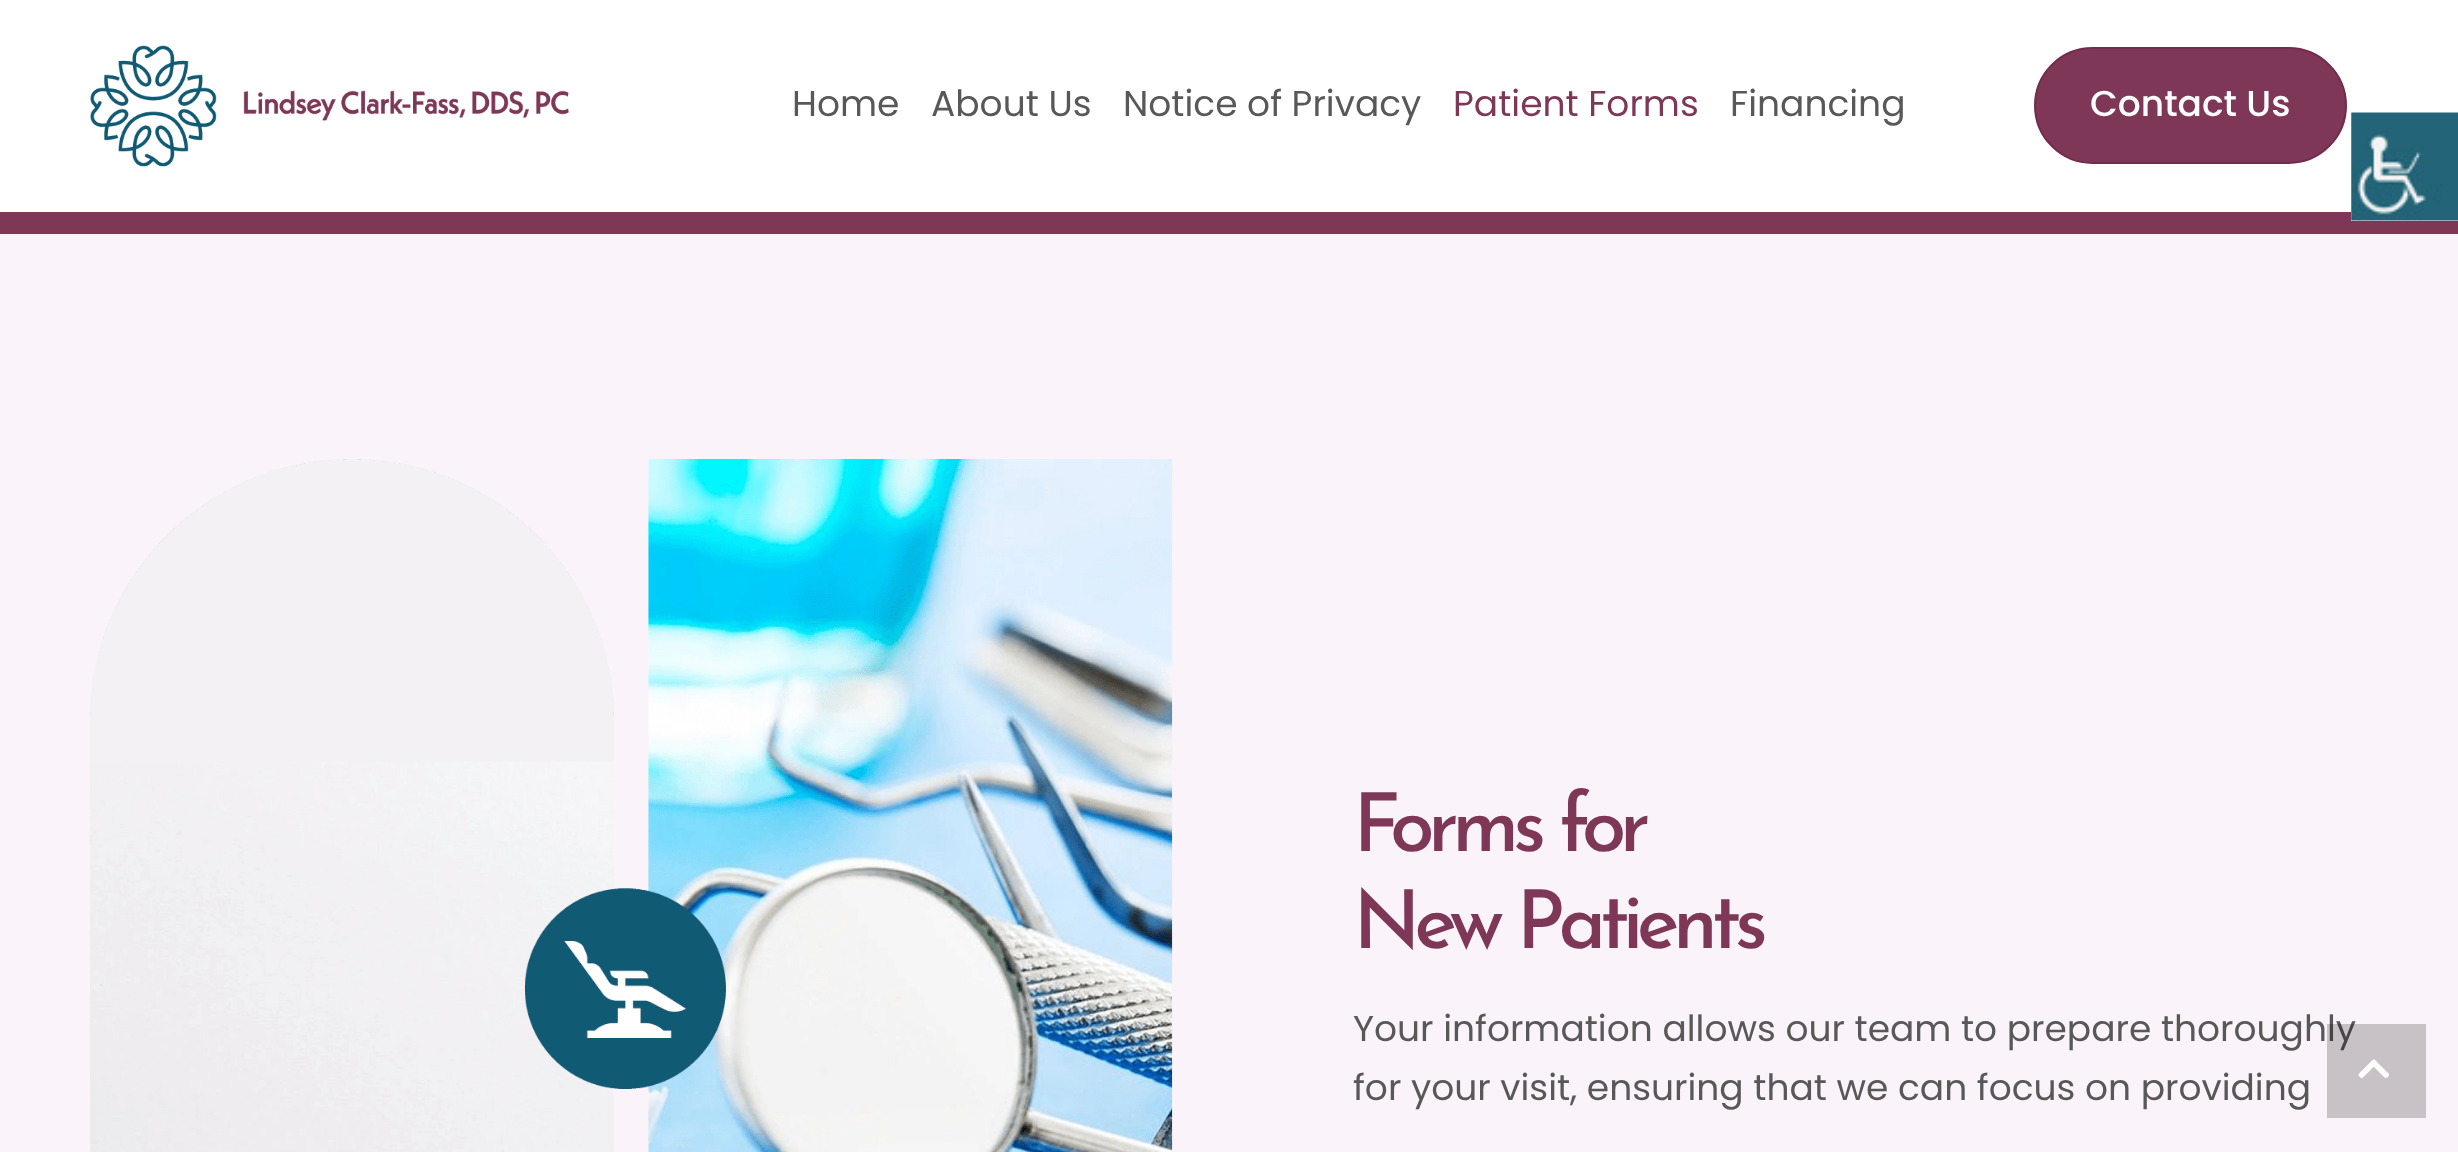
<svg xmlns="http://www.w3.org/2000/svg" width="2458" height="1152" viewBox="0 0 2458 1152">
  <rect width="100%" height="100%" fill="#ffffff"/>
  <rect x="0" y="212" width="2458" height="22" fill="#7f3758"/>
  <image x="90" y="45" width="479" height="122" href="img1.png"/>
  <text x="792" y="116" font-family="Poppins" font-size="36" fill="#585858">Home</text>
  <text x="931" y="116" font-family="Poppins" font-size="36" fill="#585858">About Us</text>
  <text x="1123" y="116" font-family="Poppins" font-size="36" fill="#585858">Notice of Privacy</text>
  <text x="1453" y="116" font-family="Poppins" font-size="36" fill="#7f3758">Patient Forms</text>
  <text x="1730" y="116" font-family="Poppins" font-size="36" fill="#585858">Financing</text>
  <rect x="2035" y="48" width="311" height="115" rx="57.5" fill="#7f3758" stroke="#732b4c" stroke-width="2"/>
  <text x="2090" y="116" font-family="Poppins" font-size="36" font-weight="500" fill="#ffffff">Contact Us</text>
  <rect x="0" y="234" width="2458" height="918" fill="#faf3f9"/>
  <image x="90" y="459" width="1083" height="693" href="img2.png"/>
  <text x="1353" y="851" font-family="Josefin Sans" font-size="81" font-weight="100" letter-spacing="-6.75" fill="#7f3758">Forms for</text>
  <text x="1353" y="948" font-family="Josefin Sans" font-size="81" font-weight="100" letter-spacing="-6.75" fill="#7f3758">New Patients</text>
  <text x="1353" y="1041" font-family="Poppins" font-size="36" fill="#585858">Your information allows our team to prepare thoroughly</text>
  <text x="1353" y="1100" font-family="Poppins" font-size="36" fill="#585858">for your visit, ensuring that we can focus on providing</text>
  <rect x="2351" y="212" width="107" height="9" fill="#ffffff"/>
  <image x="2351" y="112" width="107" height="109" href="img3.png"/>
  <rect x="2327" y="1024" width="99" height="94" fill="#000000" fill-opacity="0.2"/>
  <image x="2358" y="1059" width="31" height="19" href="img4.png"/>
</svg>
